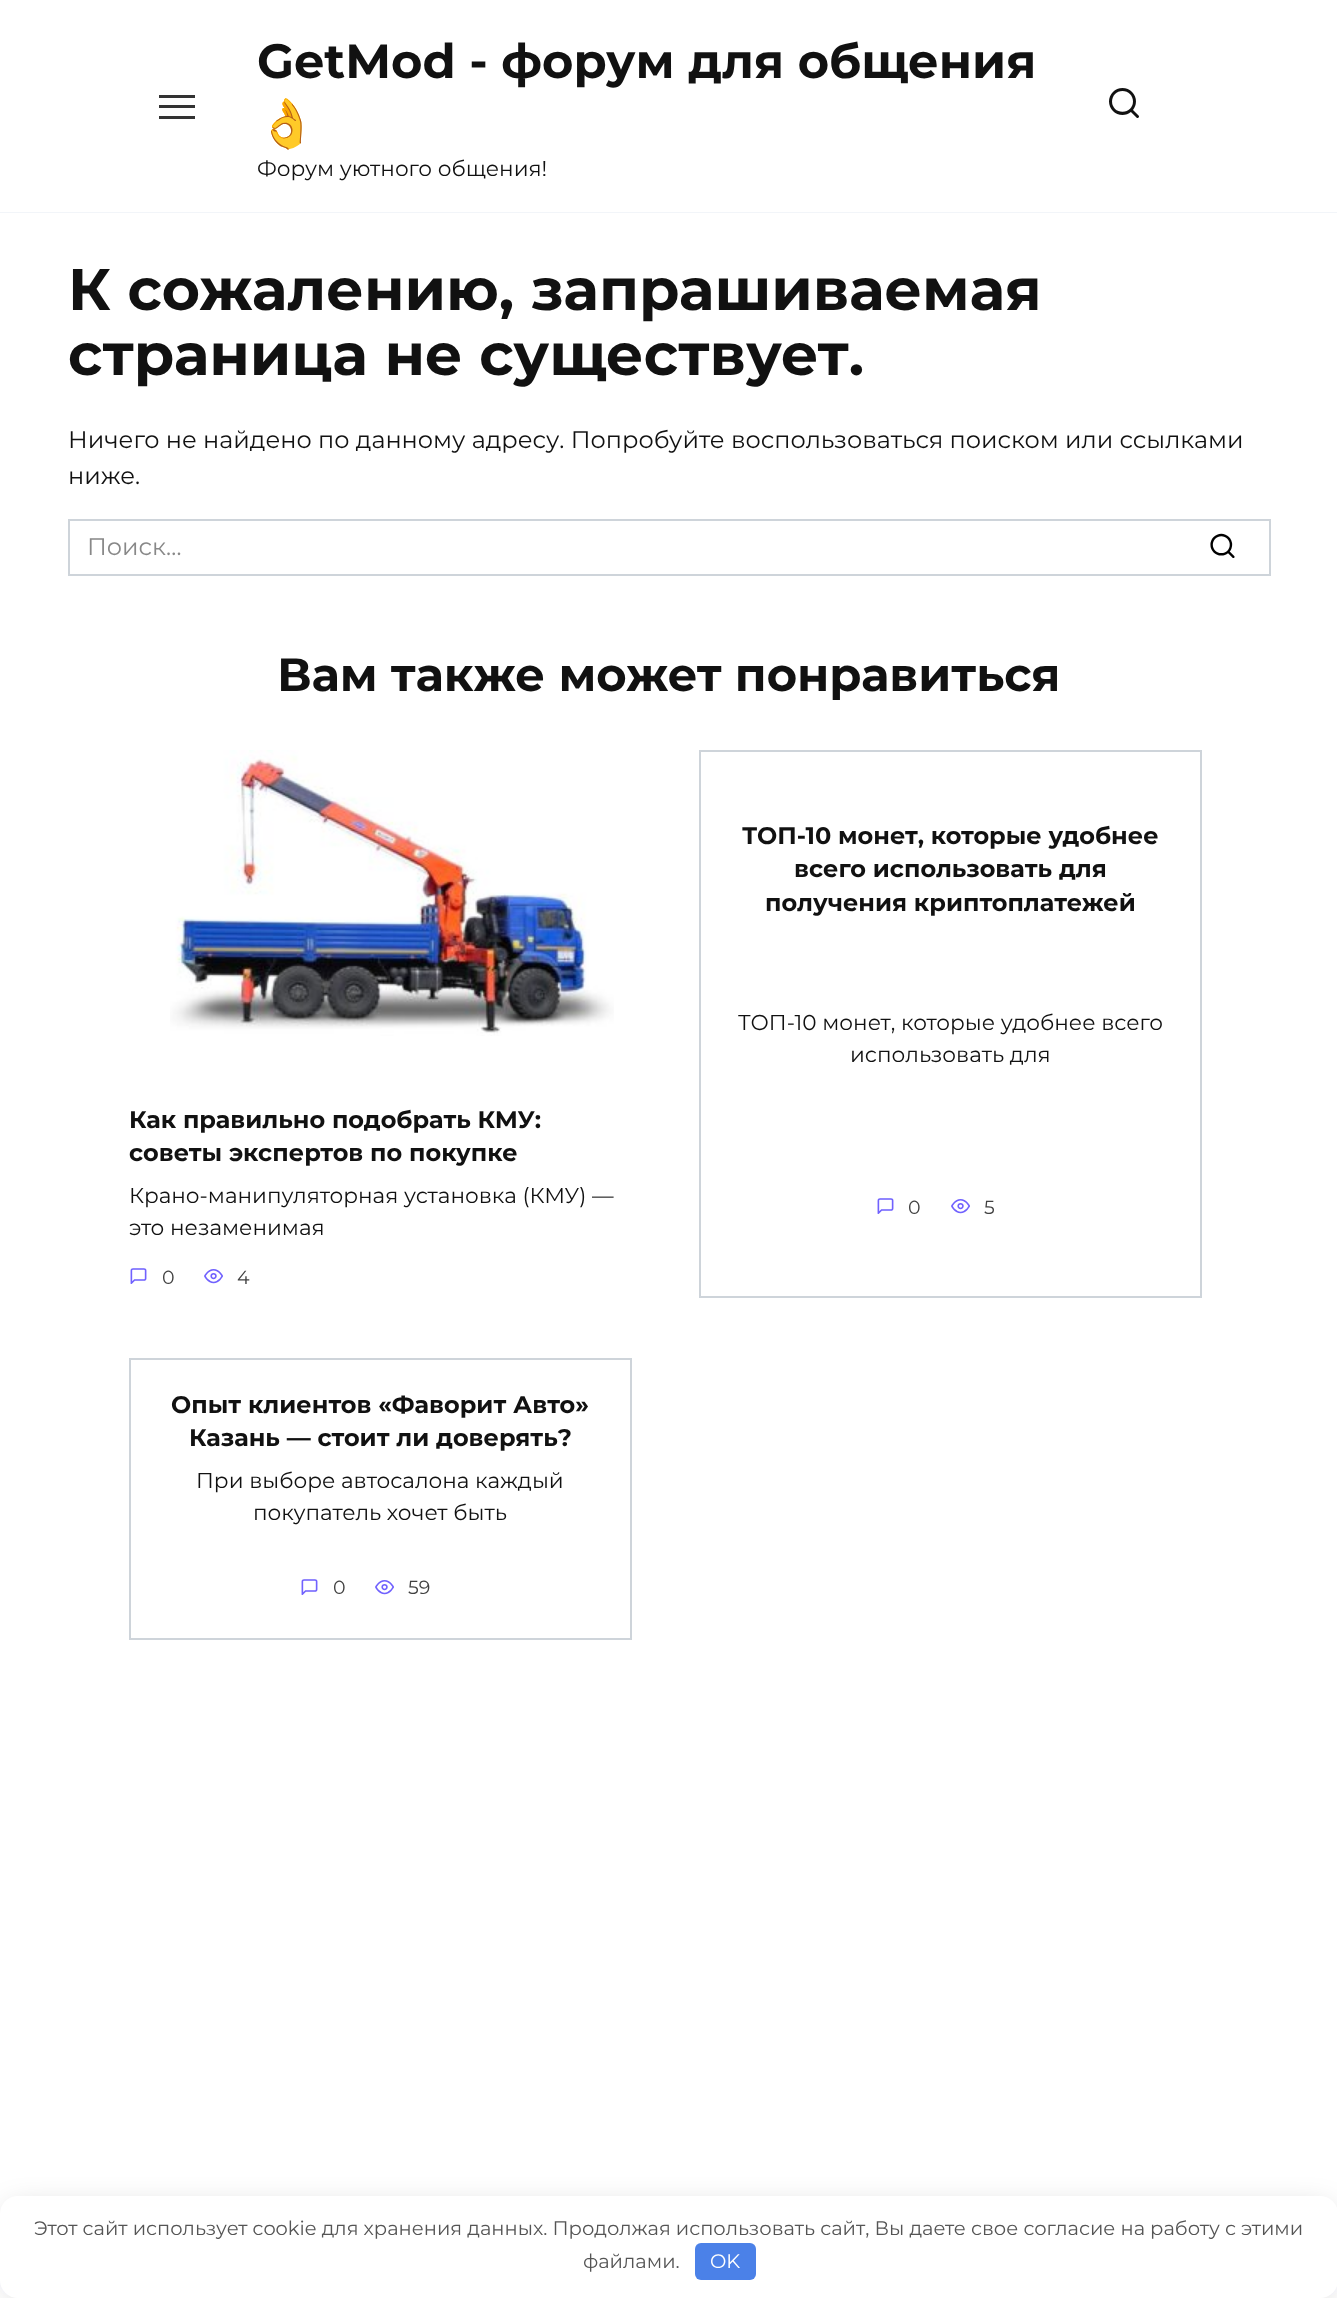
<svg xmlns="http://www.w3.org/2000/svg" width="1337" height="2298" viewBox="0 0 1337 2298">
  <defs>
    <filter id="blur1" x="-50%" y="-200%" width="200%" height="500%"><feGaussianBlur stdDeviation="15"/></filter>
  </defs>
  <rect width="100%" height="100%" fill="#ffffff"/>
  <rect x="0" y="212" width="1337" height="1" fill="#f2f5f9"/>
  <rect x="159" y="95" width="36" height="3" fill="#333333"/>
  <rect x="159" y="105" width="36" height="3" fill="#333333"/>
  <rect x="159" y="116" width="36" height="3" fill="#333333"/>
  <text x="257" y="78" font-family="Montserrat" font-size="48" font-weight="bold" fill="#111111">GetMod - форум для общения</text>
  <text x="257" y="140" font-family="Noto Color Emoji" font-size="48" font-weight="bold" fill="#111111">👌</text>
  <text x="257" y="176" font-family="Montserrat" font-size="21.6" fill="#111111">Форум уютного общения!</text>
  <text x="1106" y="118" font-family="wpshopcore" font-size="36" fill="#111111">🔍</text>
  <text x="68" y="310" font-family="Montserrat" font-size="58.5" font-weight="bold" fill="#111111">К сожалению, запрашиваемая</text>
  <text x="68" y="375" font-family="Montserrat" font-size="58.5" font-weight="bold" fill="#111111">страница не существует.</text>
  <text x="68" y="448" font-family="Montserrat" font-size="24" fill="#111111">Ничего не найдено по данному адресу. Попробуйте воспользоваться поиском или ссылками</text>
  <text x="68" y="484" font-family="Montserrat" font-size="24" fill="#111111">ниже.</text>
  <rect x="69" y="520" width="1201" height="55" fill="none" stroke="#ced4da" stroke-width="2"/>
  <text x="87" y="555" font-family="Montserrat" font-size="24" fill="#888888">Поиск…</text>
  <text x="1208" y="558" font-family="wpshopcore" font-size="29" fill="#000000">🔍</text>
  <text x="277" y="691" font-family="Montserrat" font-size="46.5" font-weight="bold" fill="#111111">Вам также может понравиться</text>
  <image x="170" y="750" width="444" height="286" href="img1.png"/>
  <text x="129" y="1128" font-family="Montserrat" font-size="24" font-weight="bold" fill="#111111">Как правильно подобрать КМУ:</text>
  <text x="129" y="1161" font-family="Montserrat" font-size="24" font-weight="bold" fill="#111111">советы экспертов по покупке</text>
  <text x="129" y="1203" font-family="Montserrat" font-size="21.6" fill="#111111">Крано-манипуляторная установка (КМУ) —</text>
  <text x="129" y="1235" font-family="Montserrat" font-size="21.6" fill="#111111">это незаменимая</text>
  <text x="129" y="1284" font-family="wpshopcore" font-size="19" fill="#7162fe">💬</text>
  <text x="162" y="1284" font-family="Montserrat" font-size="19" fill="#414141">0</text>
  <text x="204" y="1284" font-family="wpshopcore" font-size="19" fill="#7162fe">👀</text>
  <text x="237" y="1284" font-family="Montserrat" font-size="19" fill="#414141">4</text>
  <rect x="700" y="751" width="501" height="546" fill="none" stroke="#ced4da" stroke-width="2"/>
  <text x="742" y="844" font-family="Montserrat" font-size="24" font-weight="bold" fill="#111111">ТОП-10 монет, которые удобнее</text>
  <text x="794" y="877" font-family="Montserrat" font-size="24" font-weight="bold" fill="#111111">всего использовать для</text>
  <text x="765" y="911" font-family="Montserrat" font-size="24" font-weight="bold" fill="#111111">получения криптоплатежей</text>
  <text x="738" y="1030" font-family="Montserrat" font-size="21.6" fill="#111111">ТОП-10 монет, которые удобнее всего</text>
  <text x="850" y="1062" font-family="Montserrat" font-size="21.6" fill="#111111">использовать для</text>
  <text x="876" y="1214" font-family="wpshopcore" font-size="19" fill="#7162fe">💬</text>
  <text x="908" y="1214" font-family="Montserrat" font-size="19" fill="#414141">0</text>
  <text x="951" y="1214" font-family="wpshopcore" font-size="19" fill="#7162fe">👀</text>
  <text x="984" y="1214" font-family="Montserrat" font-size="19" fill="#414141">5</text>
  <rect x="130" y="1359" width="501" height="280" fill="none" stroke="#ced4da" stroke-width="2"/>
  <text x="171" y="1413" font-family="Montserrat" font-size="24" font-weight="bold" fill="#111111">Опыт клиентов «Фаворит Авто»</text>
  <text x="189" y="1446" font-family="Montserrat" font-size="24" font-weight="bold" fill="#111111">Казань — стоит ли доверять?</text>
  <text x="196" y="1488" font-family="Montserrat" font-size="21.6" fill="#111111">При выборе автосалона каждый</text>
  <text x="253" y="1520" font-family="Montserrat" font-size="21.6" fill="#111111">покупатель хочет быть</text>
  <text x="300" y="1595" font-family="wpshopcore" font-size="19" fill="#7162fe">💬</text>
  <text x="333" y="1594" font-family="Montserrat" font-size="19" fill="#414141">0</text>
  <text x="375" y="1595" font-family="wpshopcore" font-size="19" fill="#7162fe">👀</text>
  <text x="408" y="1594" font-family="Montserrat" font-size="19" fill="#414141">59</text>
  <rect x="8" y="2208" width="1323" height="87" rx="11" fill="#292c38" fill-opacity="0.2" filter="url(#blur1)"/>
  <rect x="0" y="2196" width="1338" height="102" rx="18" fill="#ffffff"/>
  <text x="34" y="2235" font-family="Montserrat" font-size="19.5" fill="#555555">Этот сайт использует cookie для хранения данных. Продолжая использовать сайт, Вы даете свое согласие на работу с этими</text>
  <text x="583" y="2268" font-family="Montserrat" font-size="19.5" fill="#555555">файлами.</text>
  <rect x="695" y="2243" width="61" height="37" rx="6" fill="#4b81e8"/>
  <text x="710" y="2268" font-family="Montserrat" font-size="19.5" fill="#ffffff">OK</text>
</svg>
